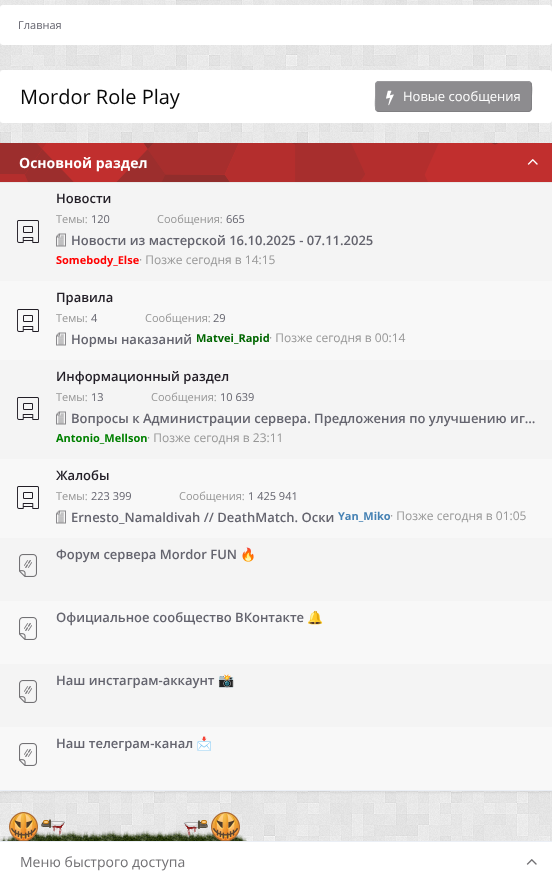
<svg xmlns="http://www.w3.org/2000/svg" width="552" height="873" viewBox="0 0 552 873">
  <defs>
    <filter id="blur1" x="-50%" y="-200%" width="200%" height="500%"><feGaussianBlur stdDeviation="1"/></filter>
  </defs>
  <rect width="100%" height="100%" fill="#ffffff"/>
  <image x="0" y="0" width="552" height="841" href="img1.png"/>
  <rect x="0" y="5" width="552" height="40" rx="3" fill="#ffffff"/>
  <text x="18" y="29" font-family="Open Sans" font-size="11" fill="#64646e">Главная</text>
  <rect x="0" y="70" width="552" height="53" rx="3" fill="#ffffff"/>
  <text x="20" y="104" font-family="Open Sans" font-size="20" fill="#070707">Mordor Role Play</text>
  <rect x="375" y="81" width="157" height="31" rx="4" fill="#8d8c8f"/>
  <path d="M530.5 82.5C532.5 85 531.5 93.5 531.5 96.5V104C531.5 107 532 111.5 528 111.5H379L376.5 110.5" fill="none" stroke="#807f82"/>
  <path d="M376.5 110.5C374.5 108 375.5 99.5 375.5 96.5V89C375.5 86 375 81.5 379 81.5H528L530.5 82.5" fill="none" stroke="#9a999c"/>
  <image x="386" y="90" width="8" height="16" href="img2.png"/>
  <text x="403" y="101" font-family="Open Sans" font-size="13" fill="#ffffff">Новые сообщения</text>
  <rect x="0" y="145" width="552" height="648" fill="#000000" fill-opacity="0.06" filter="url(#blur1)"/>
  <rect x="0" y="790" width="552" height="1" fill="#ebeff6"/>
  <rect x="0" y="143" width="2" height="1" fill="#e91316"/>
  <image x="0" y="143" width="552" height="39" href="img3.png"/>
  <rect x="0" y="182" width="552" height="1" fill="#e8e8e8"/>
  <text x="19" y="168" font-family="Open Sans" font-size="14" font-weight="bold" fill="#ffffff">Основной раздел</text>
  <image x="527" y="159" width="11" height="6" href="img4.png"/>
  <rect x="0" y="183" width="552" height="98" fill="#f4f4f4"/>
  <text x="56" y="203" font-family="Open Sans" font-size="13" font-weight="600" fill="#221e26">Новости</text>
  <text x="56" y="223" font-family="Open Sans" font-size="11" fill="#969696">Темы:</text>
  <text x="91" y="223" font-family="Open Sans" font-size="11" fill="#64646e">120</text>
  <text x="157" y="223" font-family="Open Sans" font-size="11" fill="#969696">Сообщения:</text>
  <text x="226" y="223" font-family="Open Sans" font-size="11" fill="#64646e">665</text>
  <image x="17" y="220" width="22" height="23" href="img5.png"/>
  <image x="56" y="233" width="10" height="14" href="img6.png"/>
  <text x="71" y="245" font-family="Open Sans" font-size="13" font-weight="600" fill="#64646e">Новости из мастерской 16.10.2025 - 07.11.2025</text>
  <text x="56" y="264" font-family="Open Sans" font-size="11" font-weight="bold" fill="#ff0000">Somebody_Else</text>
  <text x="139" y="264" font-family="Open Sans" font-size="12" fill="#969696">· Позже сегодня в 14:15</text>
  <rect x="0" y="281" width="552" height="79" fill="#f8f8f8"/>
  <image x="17" y="309" width="22" height="23" href="img7.png"/>
  <text x="56" y="302" font-family="Open Sans" font-size="13" font-weight="600" fill="#221e26">Правила</text>
  <text x="56" y="322" font-family="Open Sans" font-size="11" fill="#969696">Темы:</text>
  <text x="91" y="322" font-family="Open Sans" font-size="11" fill="#64646e">4</text>
  <text x="145" y="322" font-family="Open Sans" font-size="11" fill="#969696">Сообщения:</text>
  <text x="213" y="322" font-family="Open Sans" font-size="11" fill="#64646e">29</text>
  <image x="56" y="332" width="10" height="14" href="img8.png"/>
  <text x="71" y="344" font-family="Open Sans" font-size="13" font-weight="600" fill="#64646e">Нормы наказаний</text>
  <text x="196" y="342" font-family="Open Sans" font-size="11" font-weight="bold" fill="#006600">Matvei_Rapid</text>
  <text x="269" y="342" font-family="Open Sans" font-size="12" fill="#969696">· Позже сегодня в 00:14</text>
  <rect x="0" y="360" width="552" height="99" fill="#f4f4f4"/>
  <text x="56" y="381" font-family="Open Sans" font-size="13" font-weight="600" fill="#221e26">Информационный раздел</text>
  <text x="56" y="401" font-family="Open Sans" font-size="11" fill="#969696">Темы:</text>
  <text x="91" y="401" font-family="Open Sans" font-size="11" fill="#64646e">13</text>
  <text x="151" y="401" font-family="Open Sans" font-size="11" fill="#969696">Сообщения:</text>
  <text x="220" y="401" font-family="Open Sans" font-size="11" fill="#64646e">10 639</text>
  <image x="17" y="397" width="22" height="23" href="img5.png"/>
  <image x="56" y="411" width="10" height="14" href="img6.png"/>
  <text x="71" y="423" font-family="Open Sans" font-size="13" font-weight="600" fill="#64646e">Вопросы к Администрации сервера. Предложения по улучшению иг…</text>
  <text x="56" y="442" font-family="Open Sans" font-size="11" font-weight="bold" fill="#008000">Antonio_Mellson</text>
  <text x="147" y="442" font-family="Open Sans" font-size="12" fill="#969696">· Позже сегодня в 23:11</text>
  <rect x="0" y="459" width="552" height="79" fill="#f8f8f8"/>
  <image x="17" y="486" width="22" height="23" href="img7.png"/>
  <text x="56" y="480" font-family="Open Sans" font-size="13" font-weight="600" fill="#221e26">Жалобы</text>
  <text x="56" y="500" font-family="Open Sans" font-size="11" fill="#969696">Темы:</text>
  <text x="91" y="500" font-family="Open Sans" font-size="11" fill="#64646e">223 399</text>
  <text x="179" y="500" font-family="Open Sans" font-size="11" fill="#969696">Сообщения:</text>
  <text x="248" y="500" font-family="Open Sans" font-size="11" fill="#64646e">1 425 941</text>
  <image x="56" y="510" width="10" height="14" href="img8.png"/>
  <text x="71" y="522" font-family="Open Sans" font-size="13" font-weight="600" fill="#64646e">Ernesto_Namaldivah // DeathMatch. Оски</text>
  <text x="338" y="520" font-family="Open Sans" font-size="11" font-weight="bold" fill="#4682b4">Yan_Miko</text>
  <text x="390" y="520" font-family="Open Sans" font-size="12" fill="#969696">· Позже сегодня в 01:05</text>
  <rect x="0" y="538" width="552" height="63" fill="#f4f4f4"/>
  <image x="19" y="554" width="18" height="23" href="img9.png"/>
  <text x="56" y="559" font-family="Open Sans" font-size="13" font-weight="600" fill="#64646e">Форум сервера Mordor FUN</text>
  <text x="240" y="559" font-family="Noto Color Emoji" font-size="13" font-weight="bold" fill="#64646e">🔥</text>
  <rect x="0" y="601" width="552" height="63" fill="#f8f8f8"/>
  <image x="19" y="617" width="18" height="23" href="img10.png"/>
  <text x="56" y="622" font-family="Open Sans" font-size="13" font-weight="600" fill="#64646e">Официальное сообщество ВКонтакте</text>
  <text x="307" y="622" font-family="Noto Color Emoji" font-size="13" font-weight="bold" fill="#64646e">🔔</text>
  <rect x="0" y="664" width="552" height="63" fill="#f4f4f4"/>
  <image x="19" y="680" width="18" height="23" href="img9.png"/>
  <text x="56" y="685" font-family="Open Sans" font-size="13" font-weight="600" fill="#64646e">Наш инстаграм-аккаунт</text>
  <text x="218" y="685" font-family="Noto Color Emoji" font-size="13" font-weight="bold" fill="#64646e">📸</text>
  <rect x="0" y="727" width="552" height="63" fill="#f8f8f8"/>
  <image x="19" y="743" width="18" height="23" href="img10.png"/>
  <text x="56" y="748" font-family="Open Sans" font-size="13" font-weight="600" fill="#64646e">Наш телеграм-канал</text>
  <text x="196" y="748" font-family="Noto Color Emoji" font-size="13" font-weight="bold" fill="#64646e">📩</text>
  <image x="0" y="812" width="247" height="29" href="img11.png"/>
  <rect x="0" y="841" width="552" height="1" fill="#ebeff6"/>
  <text x="20" y="867" font-family="Open Sans" font-size="14" fill="#727174">Меню быстрого доступа</text>
  <image x="526" y="859" width="11" height="6" href="img12.png"/>
</svg>
